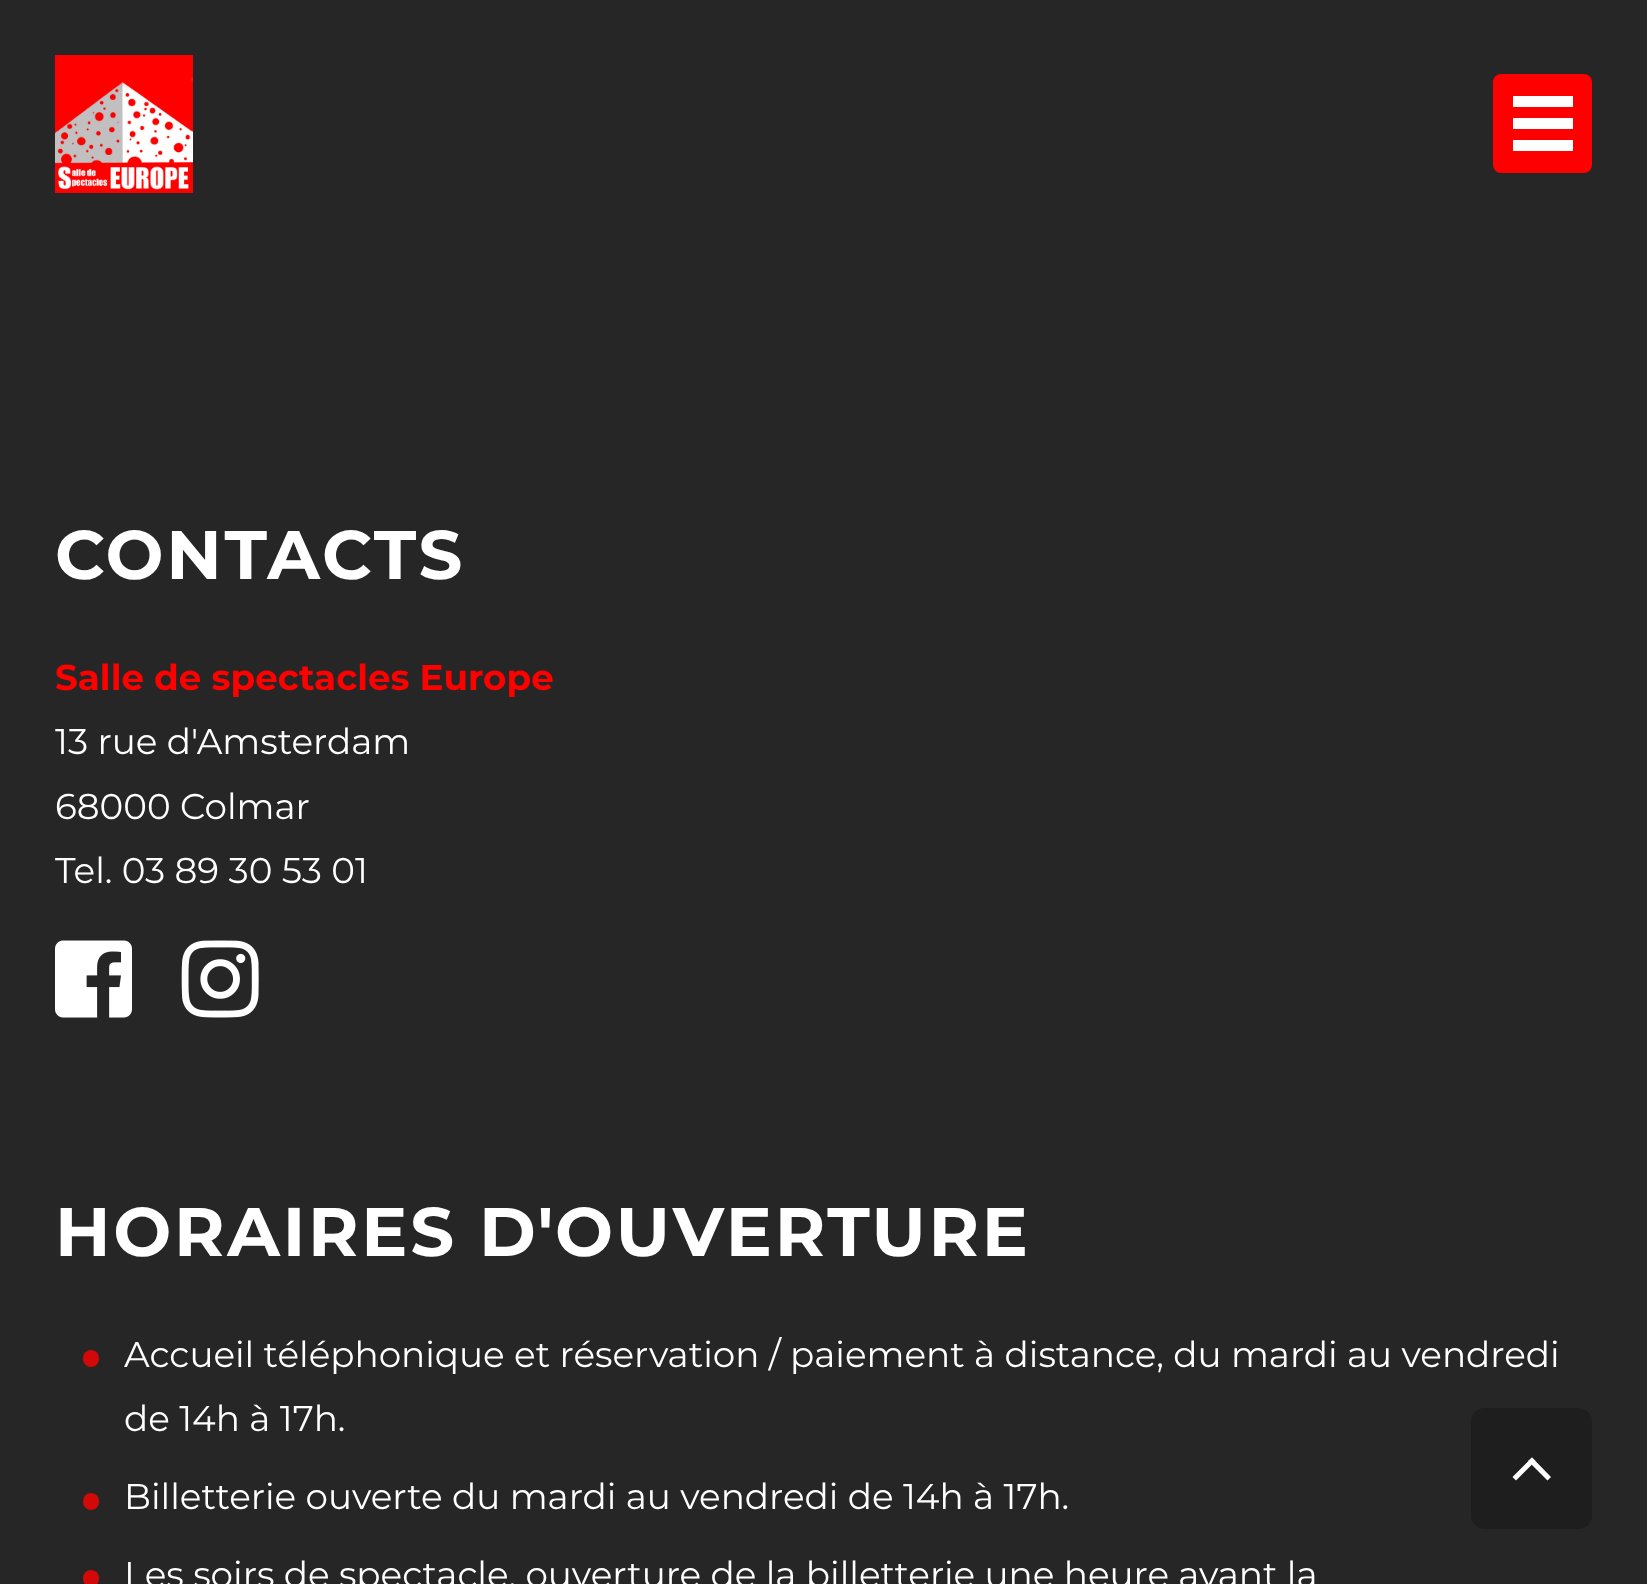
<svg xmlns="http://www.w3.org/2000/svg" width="1647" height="1584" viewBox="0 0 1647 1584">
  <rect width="100%" height="100%" fill="#262626"/>
  <image x="55" y="55" width="138" height="138" href="img1.png"/>
  <rect x="1493" y="74" width="99" height="99" rx="8" fill="#fe0000"/>
  <rect x="1513" y="118" width="60" height="11" fill="#ffffff"/>
  <rect x="1513" y="96" width="60" height="11" fill="#ffffff"/>
  <rect x="1513" y="140" width="60" height="11" fill="#ffffff"/>
  <text x="55" y="579" font-family="Montserrat" font-size="68.75" font-weight="bold" letter-spacing="2.75" fill="#ffffff">CONTACTS</text>
  <text x="55" y="690" font-family="Montserrat" font-size="35.75" font-weight="bold" fill="#fe0000">Salle de spectacles Europe</text>
  <text x="55" y="754" font-family="Montserrat" font-size="35.75" fill="#ffffff">13 rue d'Amsterdam</text>
  <text x="55" y="819" font-family="Montserrat" font-size="35.75" fill="#ffffff">68000 Colmar</text>
  <text x="55" y="883" font-family="Montserrat" font-size="35.75" fill="#ffffff">Tel. 03 89 30 53 01</text>
  <image x="55" y="940" width="77" height="78" href="img2.png"/>
  <image x="181" y="940" width="78" height="78" href="img3.png"/>
  <text x="55" y="1256" font-family="Montserrat" font-size="68.75" font-weight="bold" letter-spacing="2.75" fill="#ffffff">HORAIRES D'OUVERTURE</text>
  <rect x="83" y="1350" width="16" height="17" rx="8" fill="#d30808"/>
  <text x="124" y="1367" font-family="Montserrat" font-size="35.75" fill="#ffffff">Accueil téléphonique et réservation / paiement à distance, du mardi au vendredi</text>
  <text x="124" y="1431" font-family="Montserrat" font-size="35.75" fill="#ffffff">de 14h à 17h.</text>
  <rect x="83" y="1493" width="16" height="17" rx="8" fill="#d30808"/>
  <text x="124" y="1509" font-family="Montserrat" font-size="35.75" fill="#ffffff">Billetterie ouverte du mardi au vendredi de 14h à 17h.</text>
  <rect x="83" y="1570" width="16" height="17" rx="8" fill="#d30808"/>
  <text x="124" y="1587" font-family="Montserrat" font-size="35.75" fill="#ffffff">Les soirs de spectacle, ouverture de la billetterie une heure avant la</text>
  <rect x="1471" y="1408" width="121" height="121" rx="14" fill="#1e1e1e"/>
  <path d="M1516 1480.5L1512.5 1477L1532 1457.5L1535.5 1461Z" fill="#ffffff"/>
  <path d="M1547.5 1480.5L1528 1461L1532 1457.5L1551 1477Z" fill="#ffffff"/>
</svg>
